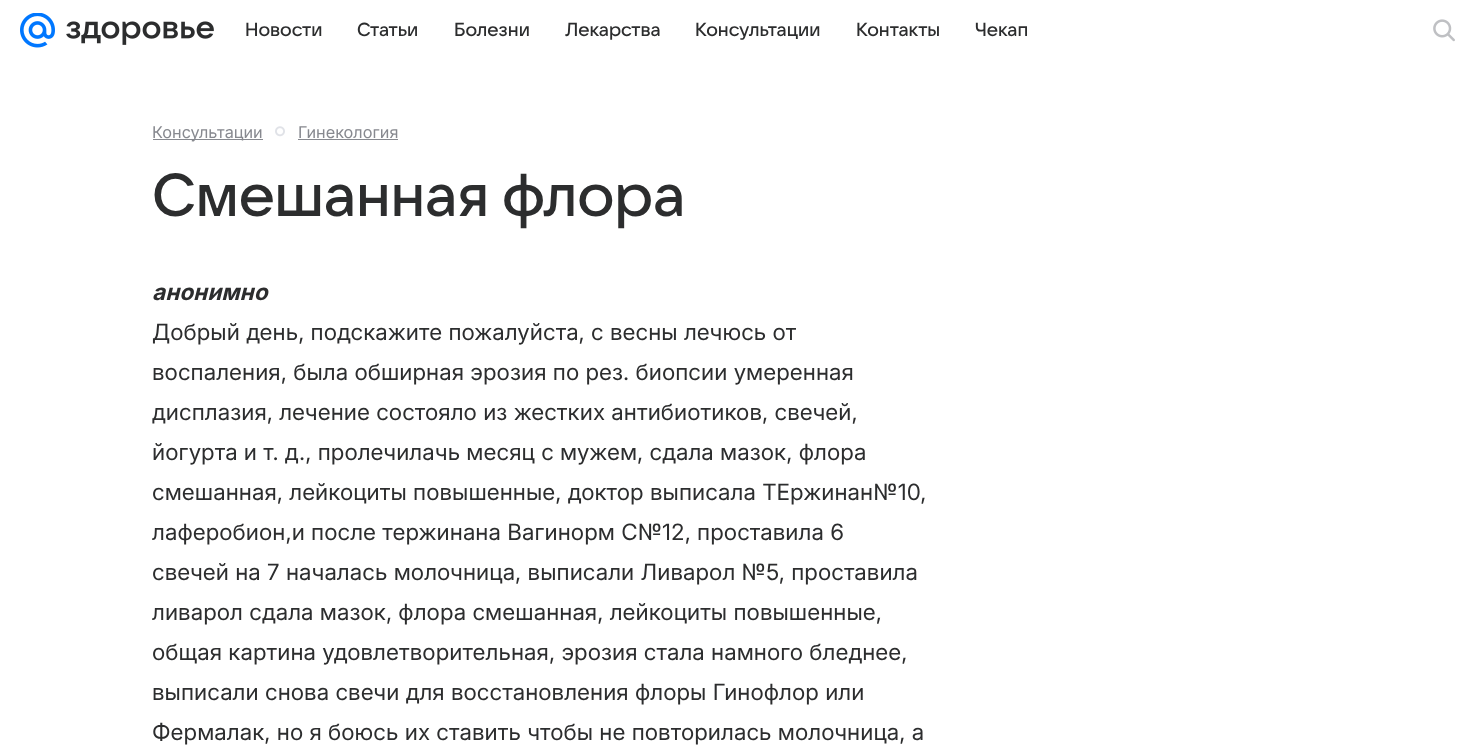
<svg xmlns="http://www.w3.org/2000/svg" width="1478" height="749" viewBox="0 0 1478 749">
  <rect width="100%" height="100%" fill="#ffffff"/>
  <image x="20" y="13" width="35" height="35" href="img1.png"/>
  <image x="66" y="21" width="148" height="24" href="img2.png"/>
  <text x="245" y="36" font-family="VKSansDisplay" font-size="18.75" font-weight="500" fill="#2c2d2e">Новости</text>
  <text x="357" y="36" font-family="VKSansDisplay" font-size="18.75" font-weight="500" fill="#2c2d2e">Статьи</text>
  <text x="454" y="36" font-family="VKSansDisplay" font-size="18.75" font-weight="500" fill="#2c2d2e">Болезни</text>
  <text x="565" y="36" font-family="VKSansDisplay" font-size="18.75" font-weight="500" fill="#2c2d2e">Лекарства</text>
  <text x="695" y="36" font-family="VKSansDisplay" font-size="18.75" font-weight="500" fill="#2c2d2e">Консультации</text>
  <text x="856" y="36" font-family="VKSansDisplay" font-size="18.75" font-weight="500" fill="#2c2d2e">Контакты</text>
  <text x="975" y="36" font-family="VKSansDisplay" font-size="18.75" font-weight="500" fill="#2c2d2e">Чекап</text>
  <image x="1433" y="19" width="22" height="23" href="img3.png"/>
  <rect x="153" y="139" width="110" height="1" fill="#87898f"/>
  <text x="152" y="138" font-family="'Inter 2'" font-size="16.25" fill="#87898f">Консультации</text>
  <image x="275" y="126" width="10" height="11" href="img4.png"/>
  <text x="298" y="138" font-family="'Inter 2'" font-size="16.25" fill="#87898f">Гинекология</text>
  <rect x="298" y="139" width="100" height="1" fill="#87898f"/>
  <text x="152" y="216" font-family="VKSansDisplay" font-size="60" font-weight="500" letter-spacing="-0.25" fill="#2c2d2e">Смешанная флора</text>
  <text x="152" y="300" font-family="Inter" font-size="22.5" font-weight="bold" font-style="italic" letter-spacing="0.07" fill="#2c2d2e">анонимно</text>
  <text x="152" y="340" font-family="Inter" font-size="22.5" letter-spacing="0.07" fill="#2c2d2e">Добрый день, подскажите пожалуйста, с весны лечюсь от</text>
  <text x="152" y="380" font-family="Inter" font-size="22.5" letter-spacing="0.07" fill="#2c2d2e">воспаления, была обширная эрозия по рез. биопсии умеренная</text>
  <text x="152" y="420" font-family="Inter" font-size="22.5" letter-spacing="0.07" fill="#2c2d2e">дисплазия, лечение состояло из жестких антибиотиков, свечей,</text>
  <text x="152" y="460" font-family="Inter" font-size="22.5" letter-spacing="0.07" fill="#2c2d2e">йогурта и т. д., пролечилачь месяц с мужем, сдала мазок, флора</text>
  <text x="152" y="500" font-family="Inter" font-size="22.5" letter-spacing="0.07" fill="#2c2d2e">смешанная, лейкоциты повышенные, доктор выписала ТЕржинан№10,</text>
  <text x="152" y="540" font-family="Inter" font-size="22.5" letter-spacing="0.07" fill="#2c2d2e">лаферобион,и после тержинана Вагинорм С№12, проставила 6</text>
  <text x="152" y="580" font-family="Inter" font-size="22.5" letter-spacing="0.07" fill="#2c2d2e">свечей на 7 началась молочница, выписали Ливарол №5, проставила</text>
  <text x="152" y="620" font-family="Inter" font-size="22.5" letter-spacing="0.07" fill="#2c2d2e">ливарол сдала мазок, флора смешанная, лейкоциты повышенные,</text>
  <text x="152" y="660" font-family="Inter" font-size="22.5" letter-spacing="0.07" fill="#2c2d2e">общая картина удовлетворительная, эрозия стала намного бледнее,</text>
  <text x="152" y="700" font-family="Inter" font-size="22.5" letter-spacing="0.07" fill="#2c2d2e">выписали снова свечи для восстановления флоры Гинофлор или</text>
  <text x="152" y="740" font-family="Inter" font-size="22.5" letter-spacing="0.07" fill="#2c2d2e">Фермалак, но я боюсь их ставить чтобы не повторилась молочница, а</text>
</svg>
